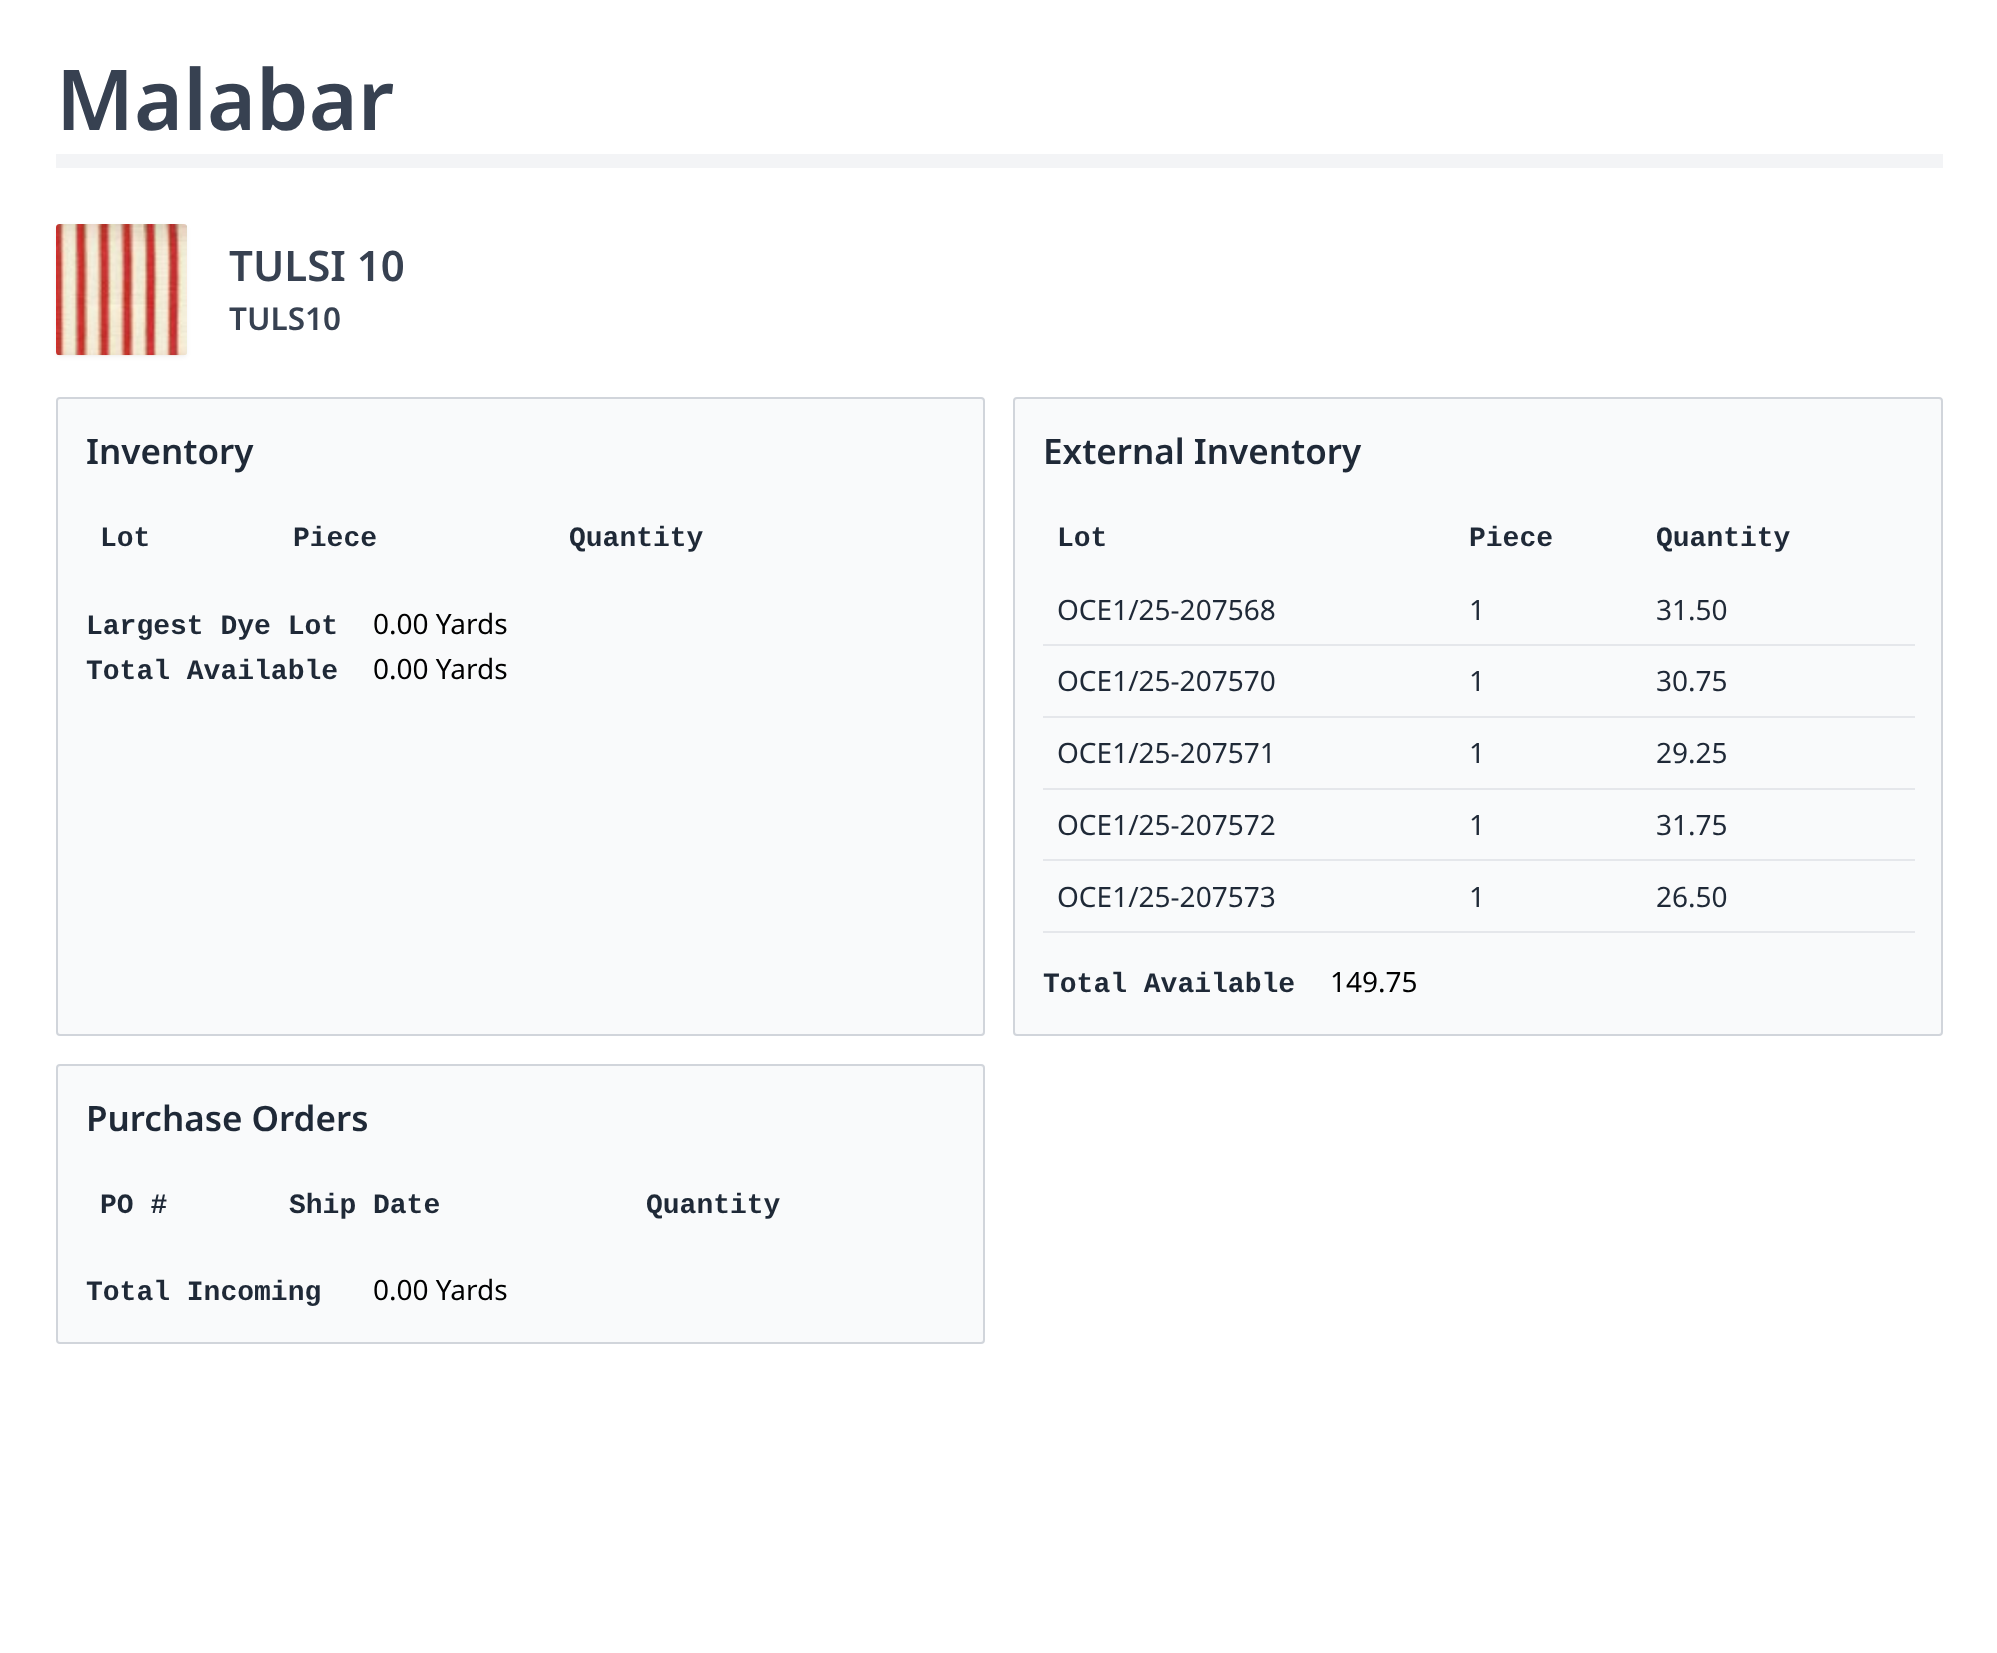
<svg xmlns="http://www.w3.org/2000/svg" width="1997" height="1653" viewBox="0 0 1997 1653">
  <defs>
    <filter id="blur1" x="-50%" y="-200%" width="200%" height="500%"><feGaussianBlur stdDeviation="2"/></filter>
  </defs>
  <rect width="100%" height="100%" fill="#ffffff"/>
  <rect x="56" y="154" width="1887" height="14" fill="#f3f4f6"/>
  <text x="56" y="130" font-family="Noto Sans" font-size="84" font-weight="600" fill="#374151">Malabar</text>
  <rect x="56" y="226" width="131" height="131" rx="4" fill="#000000" fill-opacity="0.05" filter="url(#blur1)"/>
  <image x="56" y="224" width="131" height="132" href="img1.png"/>
  <text x="229" y="281" font-family="Noto Sans" font-size="42" font-weight="600" fill="#374151">TULSI 10</text>
  <text x="229" y="330" font-family="Noto Sans" font-size="31.5" font-weight="600" fill="#374151">TULS10</text>
  <rect x="57" y="398" width="927" height="637" rx="3" fill="#f9fafb" stroke="#d1d5db" stroke-width="2"/>
  <text x="86" y="464" font-family="Noto Sans" font-size="35" font-weight="600" fill="#1f2937">Inventory</text>
  <text x="100" y="546" font-family="Liberation Mono" font-size="28" font-weight="bold" fill="#1f2937">Lot</text>
  <text x="293" y="546" font-family="Liberation Mono" font-size="28" font-weight="bold" fill="#1f2937">Piece</text>
  <text x="569" y="546" font-family="Liberation Mono" font-size="28" font-weight="bold" fill="#1f2937">Quantity</text>
  <text x="86" y="634" font-family="Liberation Mono" font-size="28" font-weight="bold" fill="#1f2937">Largest Dye Lot</text>
  <text x="373" y="634" font-family="Noto Sans" font-size="28" fill="#000000">0.00 Yards</text>
  <text x="86" y="679" font-family="Liberation Mono" font-size="28" font-weight="bold" fill="#1f2937">Total Available</text>
  <text x="373" y="679" font-family="Noto Sans" font-size="28" fill="#000000">0.00 Yards</text>
  <rect x="1014" y="398" width="928" height="637" rx="3" fill="#f9fafb" stroke="#d1d5db" stroke-width="2"/>
  <text x="1043" y="464" font-family="Noto Sans" font-size="35" font-weight="600" fill="#1f2937">External Inventory</text>
  <text x="1057" y="546" font-family="Liberation Mono" font-size="28" font-weight="bold" fill="#1f2937">Lot</text>
  <text x="1469" y="546" font-family="Liberation Mono" font-size="28" font-weight="bold" fill="#1f2937">Piece</text>
  <text x="1656" y="546" font-family="Liberation Mono" font-size="28" font-weight="bold" fill="#1f2937">Quantity</text>
  <text x="1057" y="620" font-family="Noto Sans" font-size="28" fill="#1f2937">OCE1/25-207568</text>
  <text x="1469" y="620" font-family="Noto Sans" font-size="28" fill="#1f2937">1</text>
  <rect x="1043" y="644" width="872" height="2" fill="#e5e7eb"/>
  <text x="1656" y="620" font-family="Noto Sans" font-size="28" fill="#1f2937">31.50</text>
  <text x="1057" y="691" font-family="Noto Sans" font-size="28" fill="#1f2937">OCE1/25-207570</text>
  <text x="1469" y="691" font-family="Noto Sans" font-size="28" fill="#1f2937">1</text>
  <rect x="1043" y="716" width="872" height="2" fill="#e5e7eb"/>
  <text x="1656" y="691" font-family="Noto Sans" font-size="28" fill="#1f2937">30.75</text>
  <text x="1057" y="763" font-family="Noto Sans" font-size="28" fill="#1f2937">OCE1/25-207571</text>
  <text x="1469" y="763" font-family="Noto Sans" font-size="28" fill="#1f2937">1</text>
  <rect x="1043" y="788" width="872" height="2" fill="#e5e7eb"/>
  <text x="1656" y="763" font-family="Noto Sans" font-size="28" fill="#1f2937">29.25</text>
  <text x="1057" y="835" font-family="Noto Sans" font-size="28" fill="#1f2937">OCE1/25-207572</text>
  <text x="1469" y="835" font-family="Noto Sans" font-size="28" fill="#1f2937">1</text>
  <rect x="1043" y="859" width="872" height="2" fill="#e5e7eb"/>
  <text x="1656" y="835" font-family="Noto Sans" font-size="28" fill="#1f2937">31.75</text>
  <text x="1057" y="907" font-family="Noto Sans" font-size="28" fill="#1f2937">OCE1/25-207573</text>
  <text x="1469" y="907" font-family="Noto Sans" font-size="28" fill="#1f2937">1</text>
  <rect x="1043" y="931" width="872" height="2" fill="#e5e7eb"/>
  <text x="1656" y="907" font-family="Noto Sans" font-size="28" fill="#1f2937">26.50</text>
  <text x="1043" y="992" font-family="Liberation Mono" font-size="28" font-weight="bold" fill="#1f2937">Total Available</text>
  <text x="1330" y="992" font-family="Noto Sans" font-size="28" fill="#000000">149.75</text>
  <rect x="57" y="1065" width="927" height="278" rx="3" fill="#f9fafb" stroke="#d1d5db" stroke-width="2"/>
  <text x="86" y="1131" font-family="Noto Sans" font-size="35" font-weight="600" fill="#1f2937">Purchase Orders</text>
  <text x="100" y="1213" font-family="Liberation Mono" font-size="28" font-weight="bold" fill="#1f2937">PO #</text>
  <text x="289" y="1213" font-family="Liberation Mono" font-size="28" font-weight="bold" fill="#1f2937">Ship Date</text>
  <text x="646" y="1213" font-family="Liberation Mono" font-size="28" font-weight="bold" fill="#1f2937">Quantity</text>
  <text x="86" y="1300" font-family="Liberation Mono" font-size="28" font-weight="bold" fill="#1f2937">Total Incoming</text>
  <text x="373" y="1300" font-family="Noto Sans" font-size="28" fill="#000000">0.00 Yards</text>
</svg>
